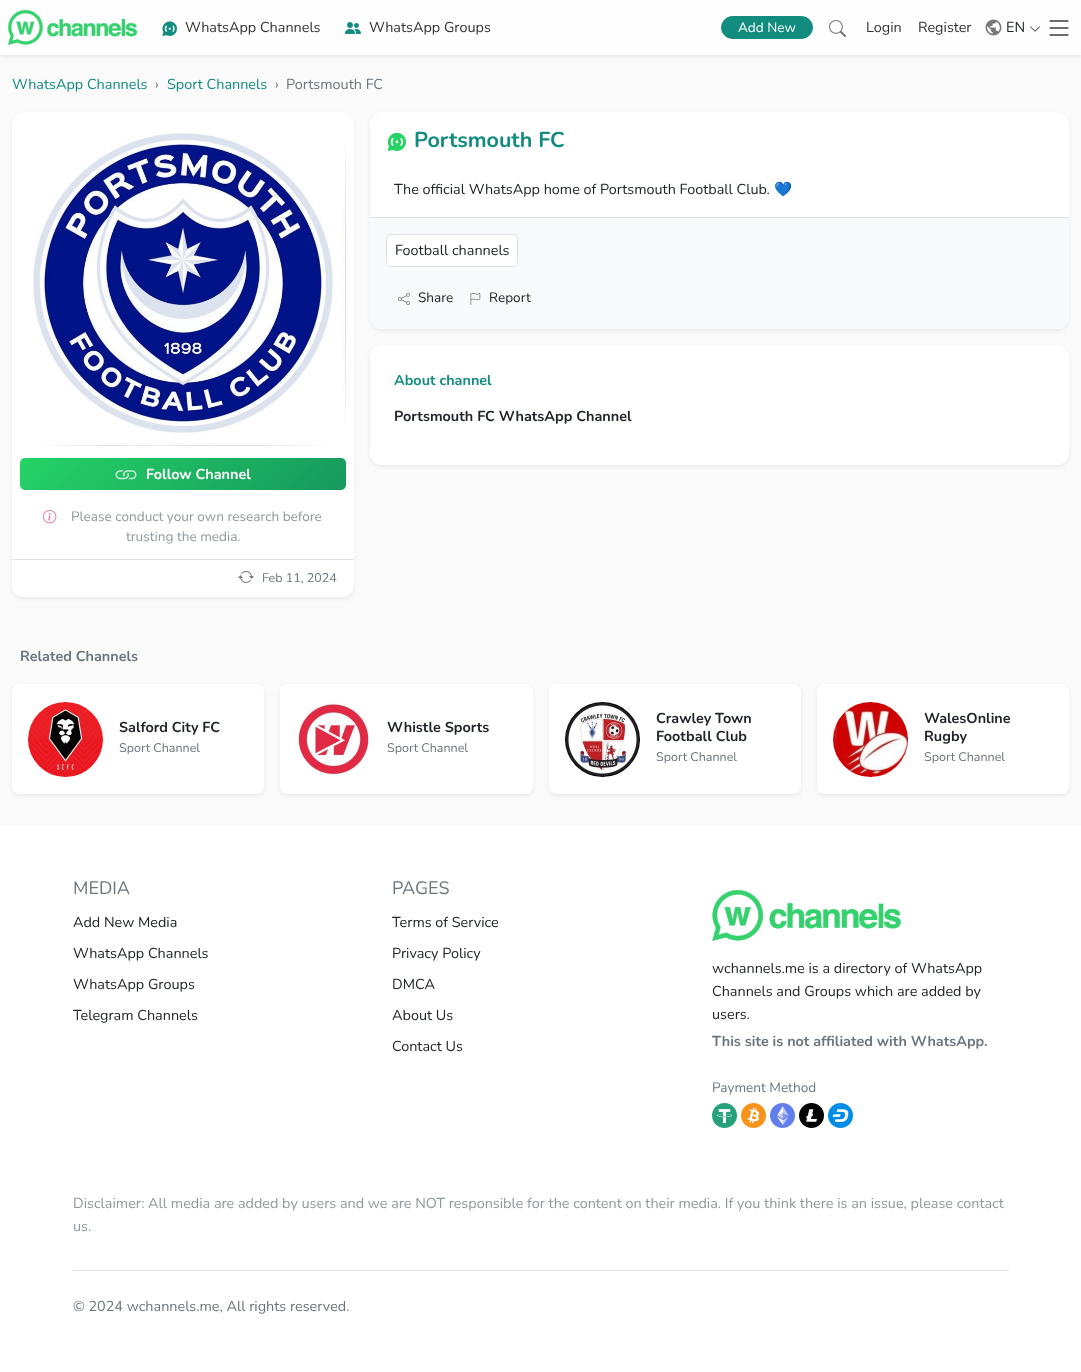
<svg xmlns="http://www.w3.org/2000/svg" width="1081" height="1372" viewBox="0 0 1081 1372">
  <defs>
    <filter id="blur1" x="-50%" y="-200%" width="200%" height="500%"><feGaussianBlur stdDeviation="2"/></filter>
    <linearGradient id="g1" gradientUnits="userSpaceOnUse" x1="1030" y1="880" x2="314" y2="164"><stop offset="0" stop-color="#128c7e"/><stop offset="0.5" stop-color="#075e54"/><stop offset="1" stop-color="#25d366"/></linearGradient>
  </defs>
  <rect width="100%" height="100%" fill="#fafafa"/>
  <rect x="0" y="2" width="1081" height="55" fill="#000000" fill-opacity="0.07" filter="url(#blur1)"/>
  <rect x="0" y="0" width="1081" height="55" fill="#fefefe"/>
  <image x="8" y="10" width="129" height="35" href="img1.png"/>
  <image x="162" y="21" width="15" height="15" href="img2.png"/>
  <text x="185" y="32" font-family="Nunito" font-size="14.4" fill="#333333">WhatsApp Channels</text>
  <image x="345" y="22" width="16" height="12" href="img3.png"/>
  <text x="369" y="32" font-family="Nunito" font-size="14.4" fill="#333333">WhatsApp Groups</text>
  <rect x="721.5" y="16.5" width="91" height="22" rx="11" fill="#128c7e" stroke="#128c7e"/>
  <text x="738" y="32" font-family="Nunito" font-size="13.6" fill="#ffffff">Add New</text>
  <image x="829" y="20" width="17" height="17" href="img4.png"/>
  <text x="866" y="32" font-family="Nunito" font-size="14.4" fill="#333333">Login</text>
  <text x="918" y="32" font-family="Nunito" font-size="14.4" fill="#333333">Register</text>
  <image x="985" y="19" width="17" height="17" href="img5.png"/>
  <text x="1006" y="32" font-family="Nunito" font-size="14.4" fill="#212529">EN</text>
  <image x="1030" y="26" width="10" height="6" href="img6.png"/>
  <image x="1049" y="20" width="20" height="16" href="img7.png"/>
  <text x="12" y="89" font-family="Nunito" font-size="14.4" fill="#128c7e">WhatsApp Channels</text>
  <text x="155" y="89" font-family="Nunito" font-size="14.4" fill="#6c757d">›</text>
  <text x="167" y="89" font-family="Nunito" font-size="14.4" fill="#128c7e">Sport Channels</text>
  <text x="275" y="89" font-family="Nunito" font-size="14.4" fill="#6c757d">›</text>
  <text x="286" y="89" font-family="Nunito" font-size="14.4" fill="#6c757d">Portsmouth FC</text>
  <rect x="370" y="114" width="699" height="217" rx="12" fill="#000000" fill-opacity="0.07" filter="url(#blur1)"/>
  <rect x="370" y="112" width="699" height="217" rx="12" fill="#ffffff"/>
  <image x="387" y="132" width="19" height="19" href="img8.png"/>
  <text x="414" y="147" font-family="Nunito" font-size="21.5" font-weight="bold" fill="#128c7e">Portsmouth FC</text>
  <text x="394" y="194" font-family="Nunito" font-size="14.4" fill="#212529">The official WhatsApp home of Portsmouth Football Club.</text>
  <text x="774" y="194" font-family="Noto Color Emoji" font-size="14.4" fill="#212529">💙</text>
  <path d="M370 217H1069V317C1069 323.5 1063.5 329 1057 329H382C375.5 329 370 323.5 370 317Z" fill="#f8f9fa"/>
  <rect x="370" y="217" width="699" height="1" fill="#dee2e6"/>
  <rect x="386.5" y="234.5" width="131" height="32" rx="4.5" fill="#ffffff" stroke="#dee2e6"/>
  <text x="395" y="255" font-family="Nunito" font-size="14.4" fill="#212529">Football channels</text>
  <image x="398" y="293" width="12" height="12" href="img9.png"/>
  <text x="418" y="302" font-family="Nunito" font-size="13.6" fill="#212529">Share</text>
  <image x="470" y="293" width="11" height="12" href="img10.png"/>
  <text x="489" y="302" font-family="Nunito" font-size="13.6" fill="#212529">Report</text>
  <rect x="370" y="347" width="699" height="120" rx="12" fill="#000000" fill-opacity="0.07" filter="url(#blur1)"/>
  <rect x="370" y="345" width="699" height="120" rx="12" fill="#ffffff"/>
  <text x="394" y="385" font-family="Nunito" font-size="14.4" font-weight="bold" fill="#128c7e">About channel</text>
  <text x="394" y="421" font-family="Nunito" font-size="14.4" font-weight="bold" fill="#212529">Portsmouth FC WhatsApp Channel</text>
  <rect x="12" y="114" width="342" height="485" rx="12" fill="#000000" fill-opacity="0.07" filter="url(#blur1)"/>
  <rect x="12" y="112" width="342" height="485" rx="12" fill="#ffffff"/>
  <image x="32" y="133" width="314" height="313" href="img11.png"/>
  <rect x="20" y="458" width="326" height="32" rx="5" fill="url(#g1)"/>
  <image x="115" y="470" width="22" height="10" href="img12.png"/>
  <text x="146" y="479" font-family="Nunito" font-size="14.4" font-weight="bold" fill="#ffffff">Follow Channel</text>
  <image x="43" y="510" width="14" height="14" href="img13.png"/>
  <text x="71" y="521" font-family="Nunito" font-size="13.6" fill="#91989e">Please conduct your own research before</text>
  <text x="126" y="541" font-family="Nunito" font-size="13.6" fill="#91989e">trusting the media.</text>
  <rect x="12" y="559" width="342" height="1" fill="#dee2e6"/>
  <image x="238" y="571" width="16" height="12" href="img14.png"/>
  <text x="262" y="582" font-family="Nunito" font-size="12.5" fill="#6c757d">Feb 11, 2024</text>
  <text x="20" y="661" font-family="Nunito" font-size="14.4" font-weight="bold" fill="#6c757d">Related Channels</text>
  <rect x="12" y="686" width="252" height="110" rx="8" fill="#000000" fill-opacity="0.07" filter="url(#blur1)"/>
  <rect x="12" y="684" width="252" height="110" rx="8" fill="#ffffff"/>
  <image x="28" y="702" width="75" height="75" href="img15.png"/>
  <text x="119" y="732" font-family="Nunito" font-size="14.4" font-weight="bold" fill="#212529">Salford City FC</text>
  <text x="119" y="752" font-family="Nunito" font-size="12.5" fill="#6c757d">Sport Channel</text>
  <rect x="280" y="686" width="253" height="110" rx="8" fill="#000000" fill-opacity="0.07" filter="url(#blur1)"/>
  <rect x="280" y="684" width="253" height="110" rx="8" fill="#ffffff"/>
  <image x="296" y="702" width="75" height="73" href="img16.png"/>
  <text x="387" y="732" font-family="Nunito" font-size="14.4" font-weight="bold" fill="#212529">Whistle Sports</text>
  <text x="387" y="752" font-family="Nunito" font-size="12.5" fill="#6c757d">Sport Channel</text>
  <rect x="549" y="686" width="252" height="110" rx="8" fill="#000000" fill-opacity="0.07" filter="url(#blur1)"/>
  <rect x="549" y="684" width="252" height="110" rx="8" fill="#ffffff"/>
  <image x="565" y="702" width="75" height="75" href="img17.png"/>
  <text x="656" y="723" font-family="Nunito" font-size="14.4" font-weight="bold" fill="#212529">Crawley Town</text>
  <text x="656" y="741" font-family="Nunito" font-size="14.4" font-weight="bold" fill="#212529">Football Club</text>
  <text x="656" y="761" font-family="Nunito" font-size="12.5" fill="#6c757d">Sport Channel</text>
  <rect x="817" y="686" width="252" height="110" rx="8" fill="#000000" fill-opacity="0.07" filter="url(#blur1)"/>
  <rect x="817" y="684" width="252" height="110" rx="8" fill="#ffffff"/>
  <image x="833" y="702" width="75" height="75" href="img18.png"/>
  <text x="924" y="723" font-family="Nunito" font-size="14.4" font-weight="bold" fill="#212529">WalesOnline</text>
  <text x="924" y="741" font-family="Nunito" font-size="14.4" font-weight="bold" fill="#212529">Rugby</text>
  <text x="924" y="761" font-family="Nunito" font-size="12.5" fill="#6c757d">Sport Channel</text>
  <rect x="0" y="826" width="1081" height="546" fill="#ffffff"/>
  <text x="73" y="894" font-family="Nunito" font-size="18" fill="#6c757d">MEDIA</text>
  <text x="73" y="927" font-family="Nunito" font-size="14.4" fill="#212529">Add New Media</text>
  <text x="73" y="958" font-family="Nunito" font-size="14.4" fill="#212529">WhatsApp Channels</text>
  <text x="73" y="989" font-family="Nunito" font-size="14.4" fill="#212529">WhatsApp Groups</text>
  <text x="73" y="1020" font-family="Nunito" font-size="14.4" fill="#212529">Telegram Channels</text>
  <text x="392" y="894" font-family="Nunito" font-size="18" fill="#6c757d">PAGES</text>
  <text x="392" y="927" font-family="Nunito" font-size="14.4" fill="#212529">Terms of Service</text>
  <text x="392" y="958" font-family="Nunito" font-size="14.4" fill="#212529">Privacy Policy</text>
  <text x="392" y="989" font-family="Nunito" font-size="14.4" fill="#212529">DMCA</text>
  <text x="392" y="1020" font-family="Nunito" font-size="14.4" fill="#212529">About Us</text>
  <text x="392" y="1051" font-family="Nunito" font-size="14.4" fill="#212529">Contact Us</text>
  <image x="712" y="890" width="189" height="51" href="img19.png"/>
  <text x="712" y="973" font-family="Nunito" font-size="14.4" fill="#212529">wchannels.me is a directory of WhatsApp</text>
  <text x="712" y="996" font-family="Nunito" font-size="14.4" fill="#212529">Channels and Groups which are added by</text>
  <text x="712" y="1019" font-family="Nunito" font-size="14.4" fill="#212529">users.</text>
  <text x="712" y="1046" font-family="Nunito" font-size="14.4" font-weight="bold" fill="#6c757d">This site is not affiliated with WhatsApp.</text>
  <text x="712" y="1092" font-family="Nunito" font-size="13.6" fill="#6c757d">Payment Method</text>
  <image x="712" y="1103" width="25" height="25" href="img20.png"/>
  <image x="741" y="1103" width="25" height="25" href="img21.png"/>
  <image x="770" y="1103" width="25" height="25" href="img22.png"/>
  <image x="799" y="1103" width="25" height="25" href="img23.png"/>
  <image x="828" y="1103" width="25" height="25" href="img24.png"/>
  <text x="73" y="1208" font-family="Nunito" font-size="14.4" fill="#91989e">Disclaimer: All media are added by users and we are NOT responsible for the content on their media. If you think there is an issue, please contact</text>
  <text x="73" y="1231" font-family="Nunito" font-size="14.4" fill="#91989e">us.</text>
  <rect x="73" y="1270" width="936" height="1" fill="#dee2e6"/>
  <text x="73" y="1311" font-family="Nunito" font-size="14.4" fill="#6c757d">© 2024 wchannels.me, All rights reserved.</text>
</svg>
